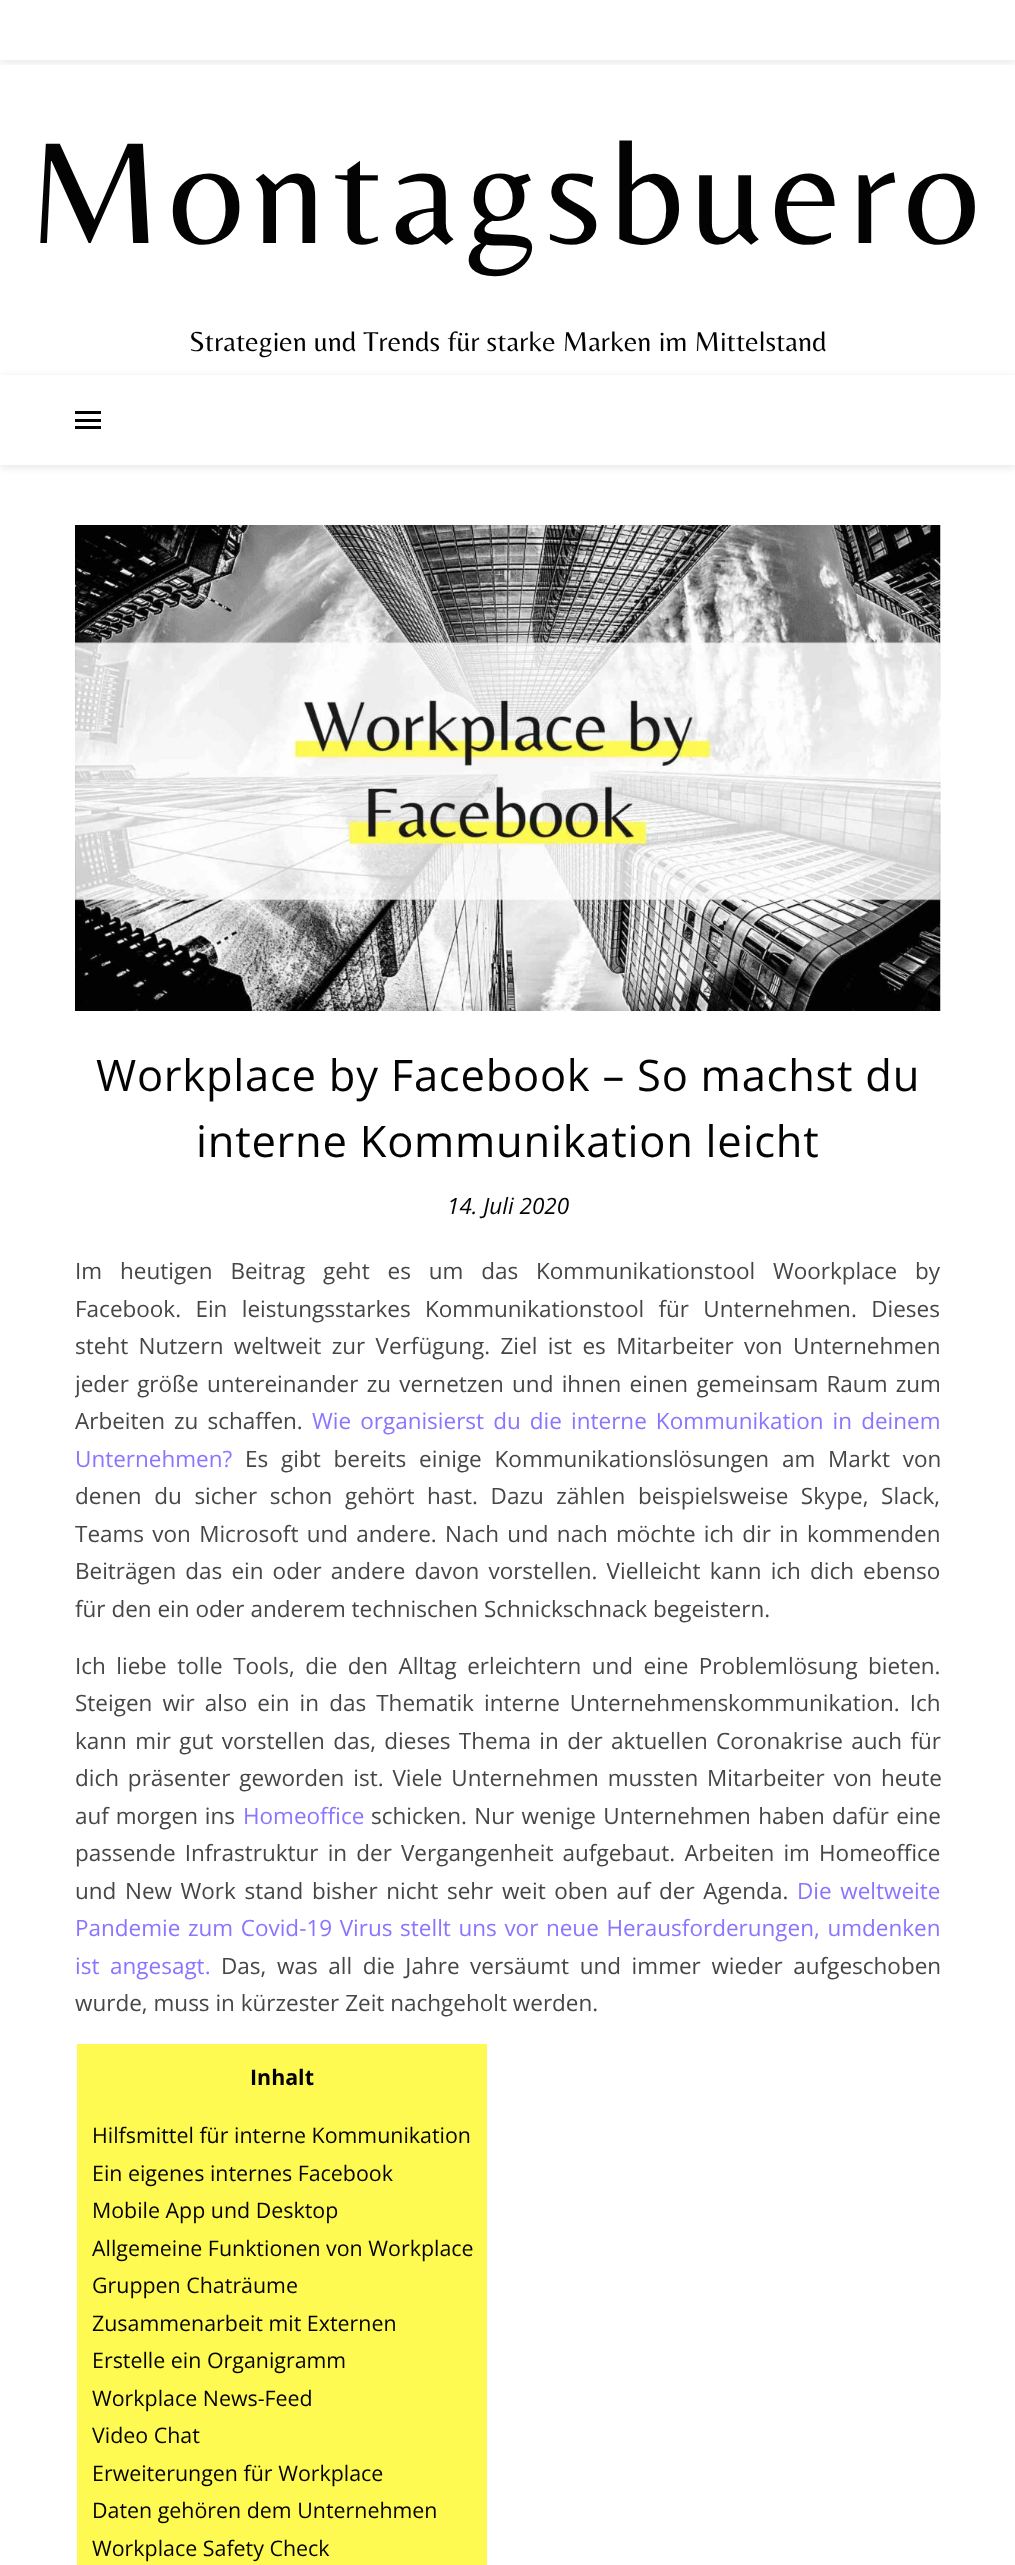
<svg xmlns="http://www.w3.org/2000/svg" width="1015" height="2565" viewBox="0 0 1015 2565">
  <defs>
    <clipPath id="clip1"><rect x="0" y="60" width="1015" height="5"/></clipPath>
    <filter id="blur1" x="-50%" y="-200%" width="200%" height="500%"><feGaussianBlur stdDeviation="4"/></filter>
    <clipPath id="clip2"><path d="M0 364H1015V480H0ZM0 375H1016V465H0Z" clip-rule="evenodd"/></clipPath>
    <clipPath id="clip3"><rect x="75" y="1253" width="866" height="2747"/></clipPath>
  </defs>
  <rect width="100%" height="100%" fill="#ffffff"/>
  <g clip-path="url(#clip1)">
    <rect x="0" y="2" width="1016" height="60" fill="#000000" fill-opacity="0.1" filter="url(#blur1)"/>
  </g>
  <text x="28" y="243" font-family="Belleza" font-size="150" letter-spacing="7.5" fill="#030303">Montagsbuero</text>
  <text x="189" y="351" font-family="Belleza" font-size="28.5" fill="#030303">Strategien und Trends für starke Marken im Mittelstand</text>
  <g clip-path="url(#clip2)">
    <rect x="0" y="377" width="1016" height="90" fill="#000000" fill-opacity="0.1" filter="url(#blur1)"/>
  </g>
  <rect x="75" y="411" width="26" height="3" fill="#000000"/>
  <rect x="75" y="419" width="26" height="3" fill="#000000"/>
  <rect x="75" y="426" width="26" height="3" fill="#000000"/>
  <image x="75" y="525" width="866" height="486" href="img1.png"/>
  <text x="96" y="1091" font-family="Open Sans" font-size="43.5" letter-spacing="0.75" fill="#030303">Workplace by Facebook – So machst du</text>
  <text x="196" y="1157" font-family="Open Sans" font-size="43.5" letter-spacing="0.75" fill="#030303">interne Kommunikation leicht</text>
  <text x="447" y="1214" font-family="Open Sans" font-size="22.5" font-style="italic" fill="#030303">14. Juli 2020</text>
  <text x="75" y="1279" word-spacing="12" font-family="Open Sans" font-size="22.5" fill="#464646">Im heutigen Beitrag geht es um das Kommunikationstool Woorkplace by</text>
  <text x="75" y="1317" word-spacing="8.5" font-family="Open Sans" font-size="22.5" fill="#464646">Facebook. Ein leistungsstarkes Kommunikationstool für Unternehmen. Dieses</text>
  <text x="75" y="1354" word-spacing="4.5" font-family="Open Sans" font-size="22.5" fill="#464646">steht Nutzern weltweit zur Verfügung. Ziel ist es Mitarbeiter von Unternehmen</text>
  <g clip-path="url(#clip3)">
    <text x="75" y="1392" word-spacing="2.4" font-family="Open Sans" font-size="22.5" fill="#464646">jeder größe untereinander zu vernetzen und ihnen einen gemeinsam Raum zum</text>
  </g>
  <text x="75" y="1429" word-spacing="3.25" font-family="Open Sans" font-size="22.5" fill="#464646">Arbeiten zu schaffen.</text>
  <text x="312" y="1429" word-spacing="3.25" font-family="Open Sans" font-size="22.5" fill="#8975ff">Wie organisierst du die interne Kommunikation in deinem</text>
  <text x="75" y="1467" font-family="Open Sans" font-size="22.5" fill="#8975ff">Unternehmen?</text>
  <text x="245" y="1467" word-spacing="7" font-family="Open Sans" font-size="22.5" fill="#464646">Es gibt bereits einige Kommunikationslösungen am Markt von</text>
  <text x="75" y="1504" word-spacing="6.75" font-family="Open Sans" font-size="22.5" fill="#464646">denen du sicher schon gehört hast. Dazu zählen beispielsweise Skype, Slack,</text>
  <text x="75" y="1542" word-spacing="2.4" font-family="Open Sans" font-size="22.5" fill="#464646">Teams von Microsoft und andere. Nach und nach möchte ich dir in kommenden</text>
  <text x="75" y="1579" word-spacing="3.25" font-family="Open Sans" font-size="22.5" fill="#464646">Beiträgen das ein oder andere davon vorstellen. Vielleicht kann ich dich ebenso</text>
  <text x="75" y="1617" font-family="Open Sans" font-size="22.5" fill="#464646">für den ein oder anderem technischen Schnickschnack begeistern.</text>
  <text x="75" y="1674" word-spacing="4.6" font-family="Open Sans" font-size="22.5" fill="#464646">Ich liebe tolle Tools, die den Alltag erleichtern und eine Problemlösung bieten.</text>
  <text x="75" y="1711" word-spacing="4.25" font-family="Open Sans" font-size="22.5" fill="#464646">Steigen wir also ein in das Thematik interne Unternehmenskommunikation. Ich</text>
  <text x="75" y="1749" word-spacing="2.5" font-family="Open Sans" font-size="22.5" fill="#464646">kann mir gut vorstellen das, dieses Thema in der aktuellen Coronakrise auch für</text>
  <text x="75" y="1786" word-spacing="3" font-family="Open Sans" font-size="22.5" fill="#464646">dich präsenter geworden ist. Viele Unternehmen mussten Mitarbeiter von heute</text>
  <text x="75" y="1824" word-spacing="1" font-family="Open Sans" font-size="22.5" fill="#464646">auf morgen ins</text>
  <text x="243" y="1824" font-family="Open Sans" font-size="22.5" fill="#8975ff">Homeoffice</text>
  <text x="371" y="1824" word-spacing="1.5" font-family="Open Sans" font-size="22.5" fill="#464646">schicken. Nur wenige Unternehmen haben dafür eine</text>
  <text x="75" y="1861" word-spacing="3.25" font-family="Open Sans" font-size="22.5" fill="#464646">passende Infrastruktur in der Vergangenheit aufgebaut. Arbeiten im Homeoffice</text>
  <text x="75" y="1899" word-spacing="2.75" font-family="Open Sans" font-size="22.5" fill="#464646">und New Work stand bisher nicht sehr weit oben auf der Agenda.</text>
  <text x="797" y="1899" word-spacing="2.75" font-family="Open Sans" font-size="22.5" fill="#8975ff">Die weltweite</text>
  <text x="75" y="1936" word-spacing="1.75" font-family="Open Sans" font-size="22.5" fill="#8975ff">Pandemie zum Covid-19 Virus stellt uns vor neue Herausforderungen, umdenken</text>
  <text x="75" y="1974" word-spacing="4.75" font-family="Open Sans" font-size="22.5" fill="#8975ff">ist angesagt.</text>
  <text x="221" y="1974" word-spacing="4.75" font-family="Open Sans" font-size="22.5" fill="#464646">Das, was all die Jahre versäumt und immer wieder aufgeschoben</text>
  <text x="75" y="2011" font-family="Open Sans" font-size="22.5" fill="#464646">wurde, muss in kürzester Zeit nachgeholt werden.</text>
  <rect x="77" y="2044" width="410" height="521" fill="#fffa51"/>
  <text x="250" y="2085" font-family="Open Sans" font-size="21.4" font-weight="bold" fill="#030303">Inhalt</text>
  <text x="92" y="2143" font-family="Open Sans" font-size="21.4" fill="#030303">Hilfsmittel für interne Kommunikation</text>
  <text x="92" y="2181" font-family="Open Sans" font-size="21.4" fill="#030303">Ein eigenes internes Facebook</text>
  <text x="92" y="2218" font-family="Open Sans" font-size="21.4" fill="#030303">Mobile App und Desktop</text>
  <text x="92" y="2256" font-family="Open Sans" font-size="21.4" fill="#030303">Allgemeine Funktionen von Workplace</text>
  <text x="92" y="2293" font-family="Open Sans" font-size="21.4" fill="#030303">Gruppen Chaträume</text>
  <text x="92" y="2331" font-family="Open Sans" font-size="21.4" fill="#030303">Zusammenarbeit mit Externen</text>
  <text x="92" y="2368" font-family="Open Sans" font-size="21.4" fill="#030303">Erstelle ein Organigramm</text>
  <text x="92" y="2406" font-family="Open Sans" font-size="21.4" fill="#030303">Workplace News-Feed</text>
  <text x="92" y="2443" font-family="Open Sans" font-size="21.4" fill="#030303">Video Chat</text>
  <text x="92" y="2481" font-family="Open Sans" font-size="21.4" fill="#030303">Erweiterungen für Workplace</text>
  <text x="92" y="2518" font-family="Open Sans" font-size="21.4" fill="#030303">Daten gehören dem Unternehmen</text>
  <text x="92" y="2556" font-family="Open Sans" font-size="21.4" fill="#030303">Workplace Safety Check</text>
</svg>
